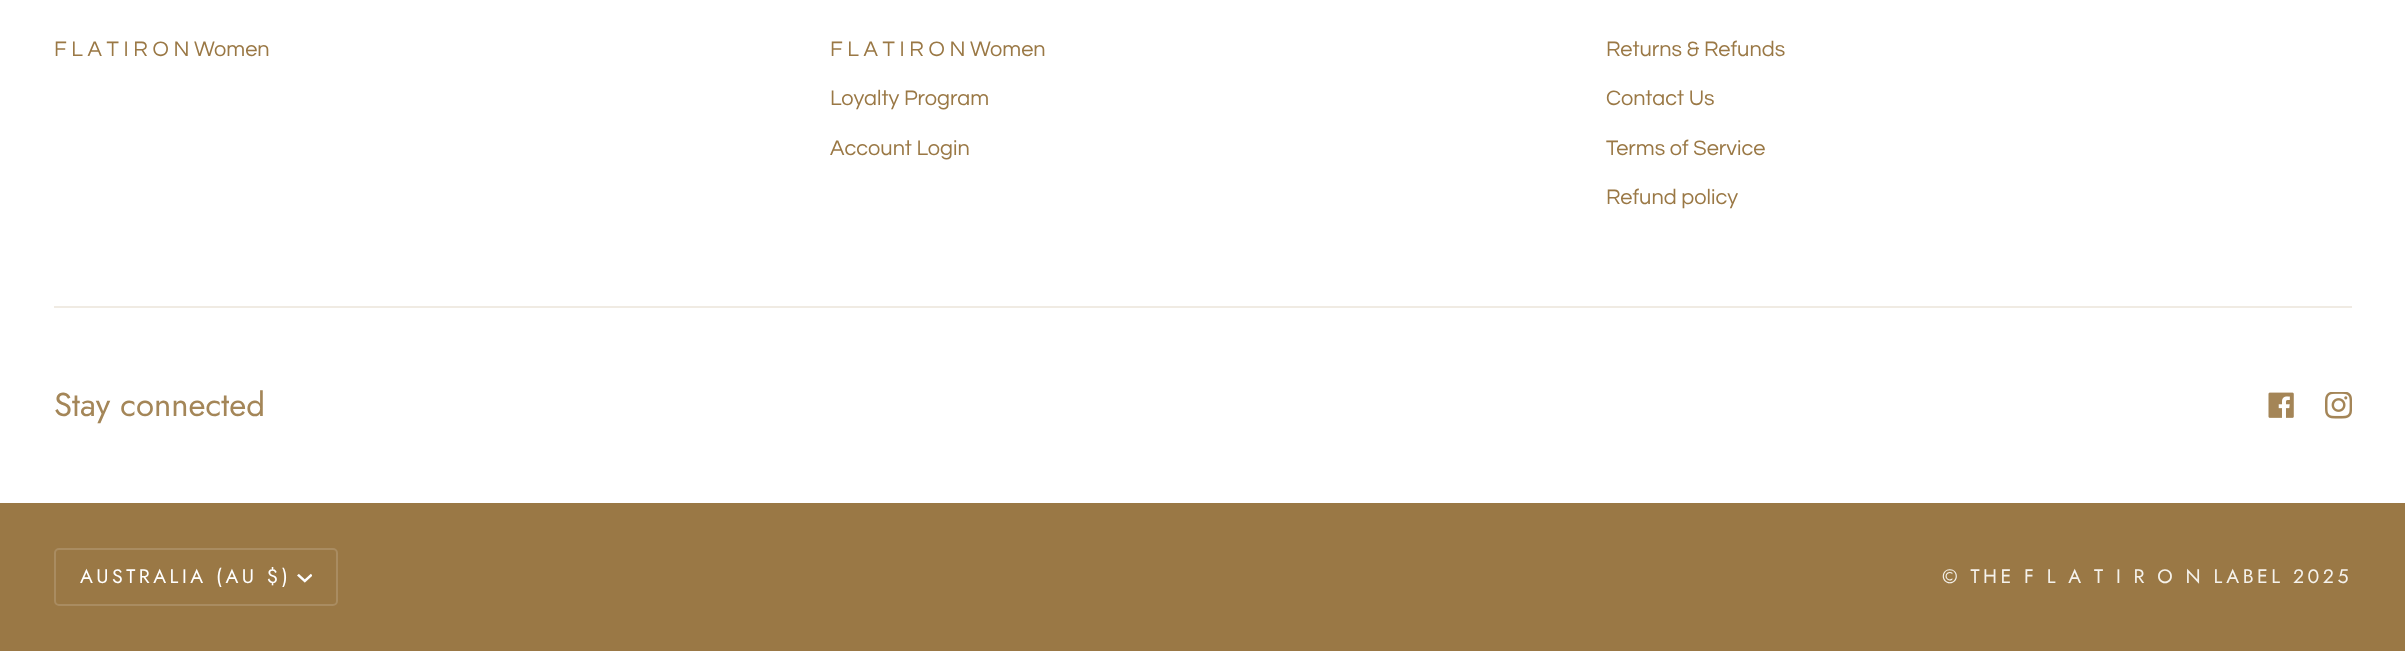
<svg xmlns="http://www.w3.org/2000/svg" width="2405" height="651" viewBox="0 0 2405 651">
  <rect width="100%" height="100%" fill="#ffffff"/>
  <text x="54" y="56" font-family="Questrial" font-size="21.75" fill="#9a7845">F L A T I R O N Women</text>
  <text x="830" y="56" font-family="Questrial" font-size="21.75" fill="#9a7845">F L A T I R O N Women</text>
  <text x="830" y="105" font-family="Questrial" font-size="21.75" fill="#9a7845">Loyalty Program</text>
  <text x="830" y="155" font-family="Questrial" font-size="21.75" fill="#9a7845">Account Login</text>
  <text x="1606" y="56" font-family="Questrial" font-size="21.75" fill="#9a7845">Returns &amp; Refunds</text>
  <text x="1606" y="105" font-family="Questrial" font-size="21.75" fill="#9a7845">Contact Us</text>
  <text x="1606" y="155" font-family="Questrial" font-size="21.75" fill="#9a7845">Terms of Service</text>
  <text x="1606" y="204" font-family="Questrial" font-size="21.75" fill="#9a7845">Refund policy</text>
  <rect x="54" y="306" width="2298" height="2" fill="#f0ebe3"/>
  <text x="54" y="416" font-family="Jost" font-size="33" fill="#a48658">Stay connected</text>
  <image x="2268" y="392" width="26" height="26" href="img1.png"/>
  <image x="2325" y="392" width="27" height="27" href="img2.png"/>
  <rect x="0" y="503" width="2405" height="148" fill="#9a7845"/>
  <rect x="55" y="549" width="282" height="56" rx="4" fill="none" stroke="#a98c61" stroke-width="2"/>
  <text x="80" y="583" font-family="Jost" font-size="19.5" letter-spacing="3.5" fill="#ffffff">AUSTRALIA (AU $)</text>
  <image x="297" y="573" width="15" height="10" href="img3.png"/>
  <text x="1942" y="583" font-family="Jost" font-size="19.5" letter-spacing="3.5" fill="#f5f2ec">© THE F L A T I R O N LABEL</text>
  <text x="2293" y="583" font-family="Jost" font-size="19.5" letter-spacing="3.5" fill="#f5f2ec">2025</text>
</svg>
